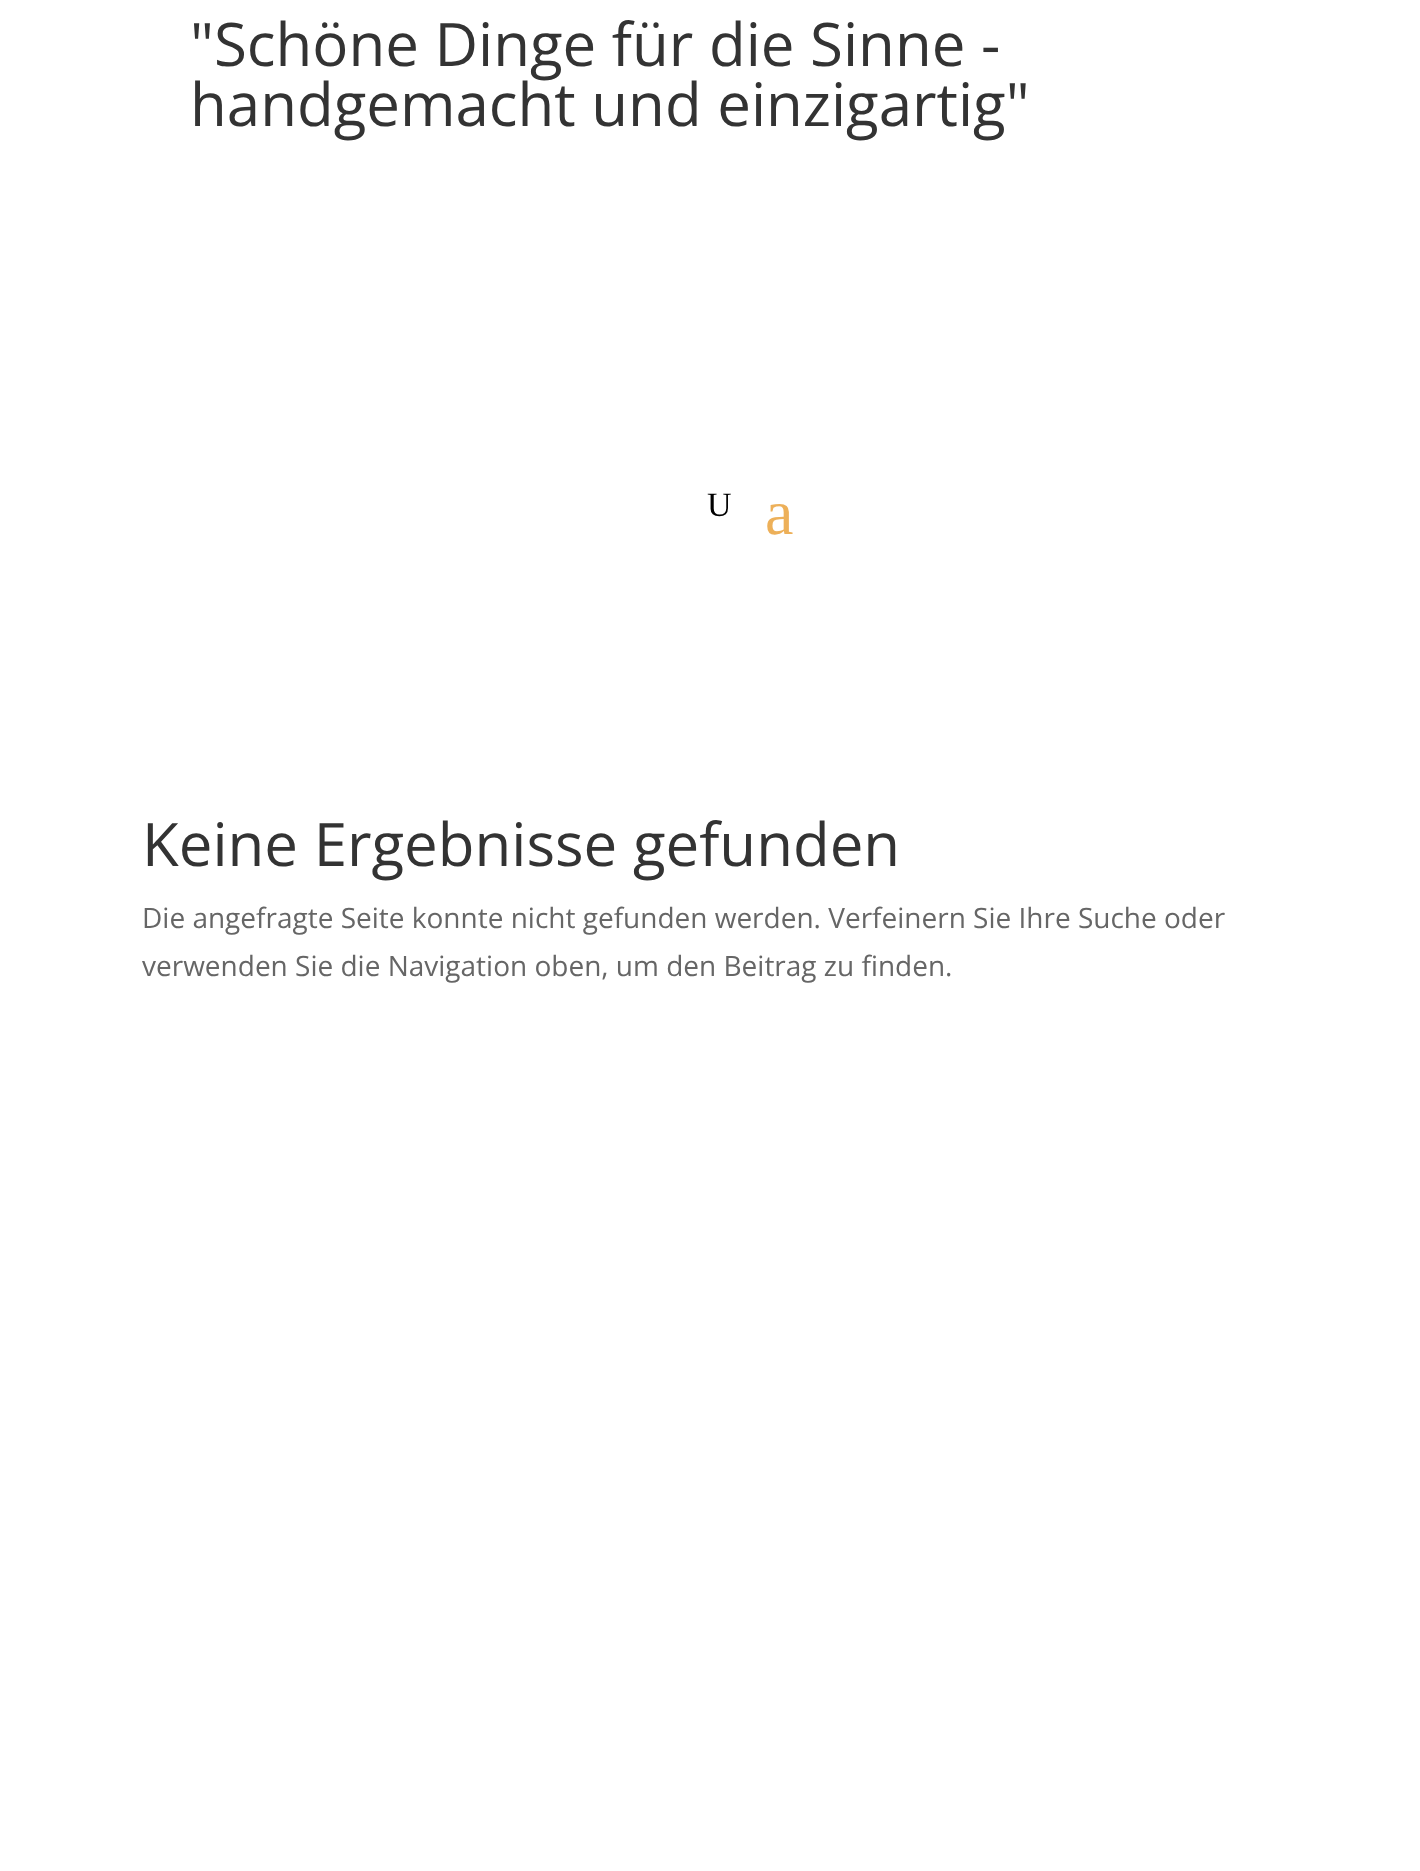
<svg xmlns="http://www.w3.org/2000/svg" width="1420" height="1871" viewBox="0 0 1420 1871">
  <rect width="100%" height="100%" fill="#ffffff"/>
  <text x="190" y="66" font-family="Open Sans" font-size="60" fill="#333333">"Schöne Dinge für die Sinne -</text>
  <text x="190" y="126" font-family="Open Sans" font-size="60" fill="#333333">handgemacht und einzigartig"</text>
  <text x="707" y="516" font-family="Liberation Serif" font-size="34" fill="#000000">U</text>
  <text x="765" y="534" font-family="Liberation Serif" font-size="64" fill="#edb059">a</text>
  <text x="142" y="866" font-family="Open Sans" font-size="60" fill="#333333">Keine Ergebnisse gefunden</text>
  <text x="142" y="928" font-family="Open Sans" font-size="28" fill="#666666">Die angefragte Seite konnte nicht gefunden werden. Verfeinern Sie Ihre Suche oder</text>
  <text x="142" y="976" font-family="Open Sans" font-size="28" fill="#666666">verwenden Sie die Navigation oben, um den Beitrag zu finden.</text>
</svg>
